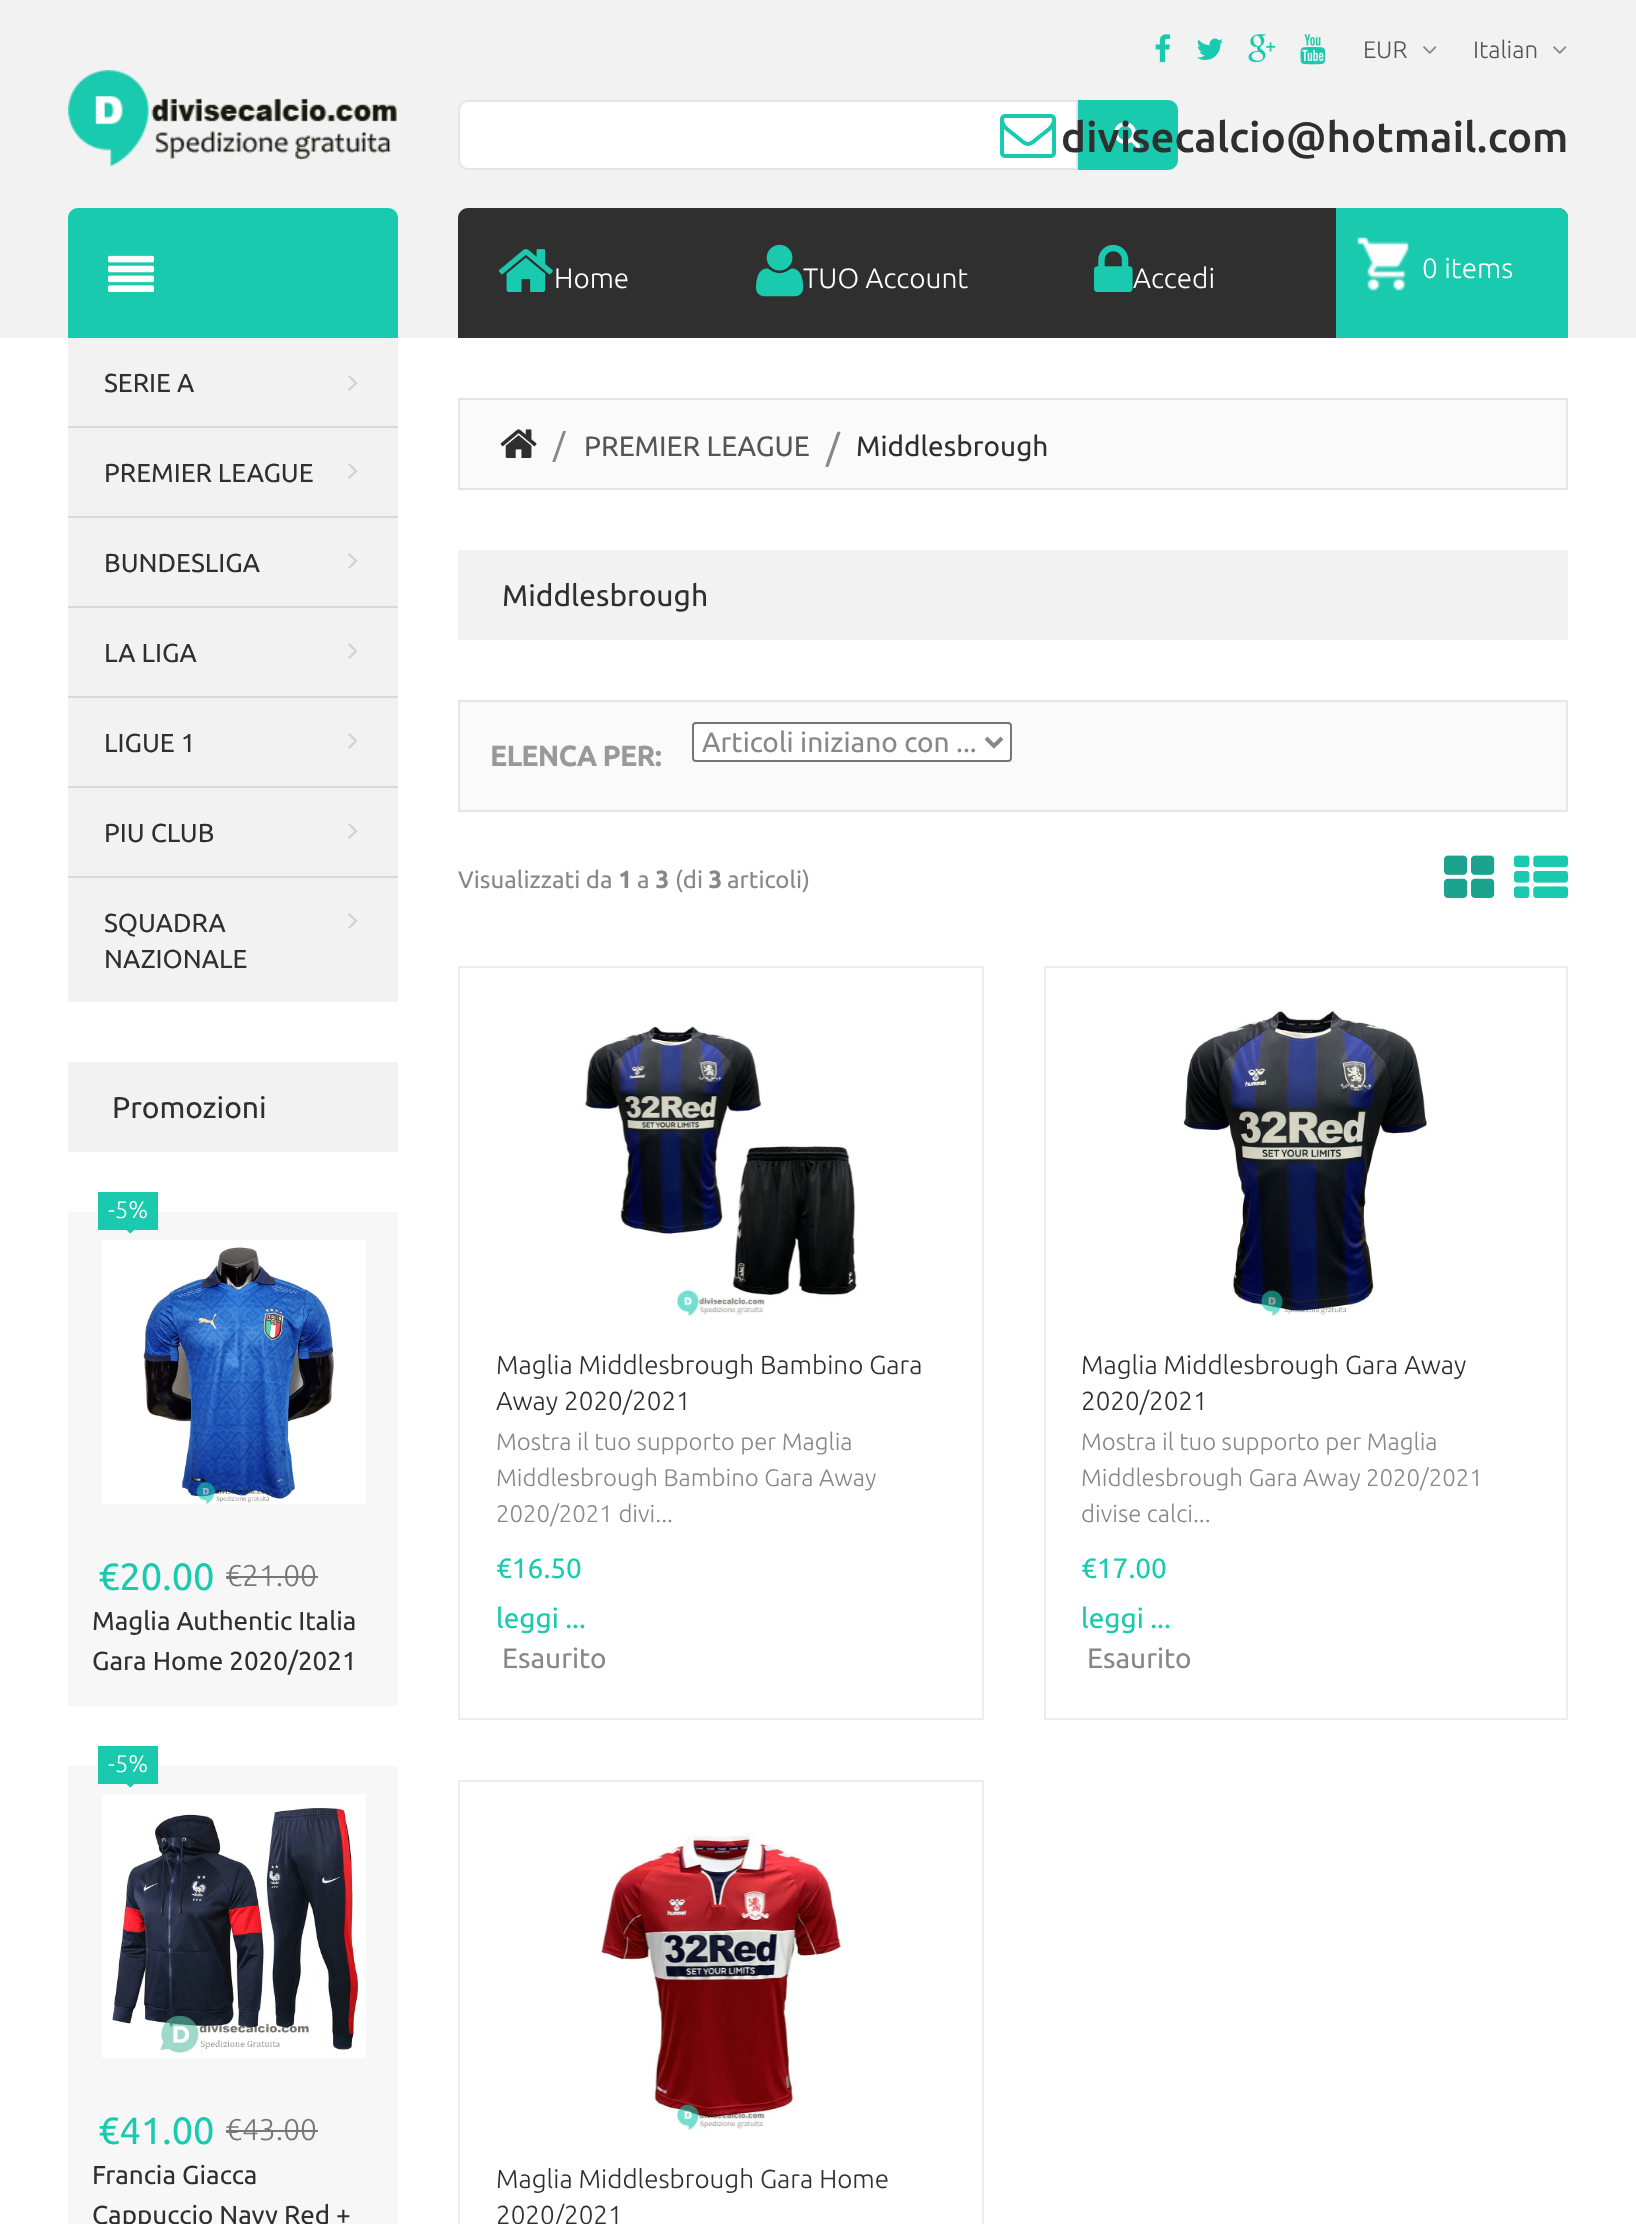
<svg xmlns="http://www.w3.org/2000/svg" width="1636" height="2224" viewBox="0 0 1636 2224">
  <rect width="100%" height="100%" fill="#f2f2f2"/>
  <image x="1155" y="34" width="16" height="29" href="img1.png"/>
  <image x="1197" y="38" width="26" height="22" href="img2.png"/>
  <image x="1248" y="34" width="27" height="29" href="img3.png"/>
  <image x="1300" y="34" width="26" height="31" href="img4.png"/>
  <text x="1363" y="58" font-family="Ubuntu" font-size="24" font-weight="300" fill="#555555">EUR</text>
  <image x="1423" y="46" width="14" height="8" href="img5.png"/>
  <text x="1473" y="58" font-family="Ubuntu" font-size="24" font-weight="300" fill="#555555">Italian</text>
  <image x="1553" y="46" width="14" height="8" href="img5.png"/>
  <image x="68" y="70" width="329" height="96" href="img6.png"/>
  <path d="M468 101H1077V169H468C463 169 459 165 459 160V110C459 105 463 101 468 101Z" fill="#ffffff" stroke="#e5e5e5" stroke-width="2"/>
  <path d="M1078 100H1168C1173.5 100 1178 104.5 1178 110V160C1178 165.5 1173.5 170 1168 170H1078Z" fill="#19caaf"/>
  <image x="1114" y="122" width="26" height="26" href="img7.png"/>
  <image x="1000" y="114" width="56" height="44" href="img8.png"/>
  <text x="1061" y="152" font-family="Ubuntu" font-size="42" font-weight="500" fill="#2f2f2f">divisecalcio@hotmail.com</text>
  <path d="M78 208H388C393.5 208 398 212.5 398 218V338H68V218C68 212.5 72.5 208 78 208Z" fill="#19caaf"/>
  <image x="108" y="255" width="46" height="37" href="img9.png"/>
  <path d="M468 208H1558C1563.5 208 1568 212.5 1568 218V338H458V218C458 212.5 462.5 208 468 208Z" fill="#2f2f2f"/>
  <image x="498" y="249" width="55" height="43" href="img10.png"/>
  <text x="554" y="288" font-family="Ubuntu" font-size="28" font-weight="300" fill="#ffffff">Home</text>
  <text x="803" y="288" font-family="Ubuntu" font-size="28" font-weight="300" fill="#ffffff">TUO Account</text>
  <image x="756" y="244" width="48" height="53" href="img11.png"/>
  <image x="1094" y="244" width="39" height="48" href="img12.png"/>
  <text x="1133" y="288" font-family="Ubuntu" font-size="28" font-weight="300" fill="#ffffff">Accedi</text>
  <path d="M1336 208H1558C1563.5 208 1568 212.5 1568 218V338H1336Z" fill="#19caaf"/>
  <image x="1357" y="237" width="52" height="54" href="img13.png"/>
  <text x="1422" y="278" font-family="Ubuntu" font-size="28" font-weight="300" fill="#ffffff">0 items</text>
  <rect x="0" y="338" width="1636" height="1886" fill="#ffffff"/>
  <rect x="68" y="338" width="330" height="88" fill="#f2f2f2"/>
  <text x="104" y="392" font-family="Ubuntu" font-size="26" fill="#2f2f2f">SERIE A</text>
  <image x="348" y="375" width="9" height="16" href="img14.png"/>
  <rect x="68" y="428" width="330" height="88" fill="#f2f2f2"/>
  <rect x="68" y="426" width="330" height="2" fill="#d9d9d9"/>
  <text x="104" y="482" font-family="Ubuntu" font-size="26" fill="#2f2f2f">PREMIER LEAGUE</text>
  <image x="348" y="463" width="9" height="16" href="img14.png"/>
  <rect x="68" y="518" width="330" height="88" fill="#f2f2f2"/>
  <rect x="68" y="516" width="330" height="2" fill="#d9d9d9"/>
  <text x="104" y="572" font-family="Ubuntu" font-size="26" fill="#2f2f2f">BUNDESLIGA</text>
  <image x="348" y="553" width="9" height="16" href="img14.png"/>
  <rect x="68" y="608" width="330" height="88" fill="#f2f2f2"/>
  <rect x="68" y="606" width="330" height="2" fill="#d9d9d9"/>
  <text x="104" y="662" font-family="Ubuntu" font-size="26" fill="#2f2f2f">LA LIGA</text>
  <image x="348" y="643" width="9" height="16" href="img14.png"/>
  <rect x="68" y="698" width="330" height="88" fill="#f2f2f2"/>
  <rect x="68" y="696" width="330" height="2" fill="#d9d9d9"/>
  <text x="104" y="752" font-family="Ubuntu" font-size="26" fill="#2f2f2f">LIGUE 1</text>
  <image x="348" y="733" width="9" height="16" href="img14.png"/>
  <rect x="68" y="788" width="330" height="88" fill="#f2f2f2"/>
  <rect x="68" y="786" width="330" height="2" fill="#d9d9d9"/>
  <text x="104" y="842" font-family="Ubuntu" font-size="26" fill="#2f2f2f">PIU CLUB</text>
  <image x="348" y="823" width="9" height="16" href="img14.png"/>
  <rect x="68" y="878" width="330" height="124" fill="#f2f2f2"/>
  <rect x="68" y="876" width="330" height="2" fill="#d9d9d9"/>
  <text x="104" y="932" font-family="Ubuntu" font-size="26" fill="#2f2f2f">SQUADRA</text>
  <text x="104" y="968" font-family="Ubuntu" font-size="26" fill="#2f2f2f">NAZIONALE</text>
  <image x="348" y="913" width="9" height="16" href="img14.png"/>
  <rect x="68" y="1062" width="330" height="90" fill="#f2f2f2"/>
  <text x="112" y="1118" font-family="Ubuntu" font-size="30" fill="#2f2f2f">Promozioni</text>
  <rect x="68" y="1212" width="330" height="494" fill="#f7f7f7"/>
  <rect x="98" y="1192" width="60" height="38" fill="#19caaf"/>
  <text x="108" y="1218" font-family="Ubuntu" font-size="24" font-weight="300" fill="#ffffff">-5%</text>
  <image x="126" y="1230" width="8" height="4" href="img15.png"/>
  <text x="98" y="1590" font-family="Ubuntu" font-size="38" fill="#19caaf">€20.00</text>
  <text x="225" y="1586" font-family="Ubuntu" font-size="30" font-weight="300" fill="#777777">€21.00</text>
  <rect x="226" y="1576" width="92" height="2" fill="#777777"/>
  <text x="92" y="1630" font-family="Ubuntu" font-size="26" fill="#2f2f2f">Maglia Authentic Italia</text>
  <text x="92" y="1670" font-family="Ubuntu" font-size="26" fill="#2f2f2f">Gara Home 2020/2021</text>
  <image x="102" y="1240" width="264" height="264" href="img16.png"/>
  <rect x="68" y="1766" width="330" height="458" fill="#f7f7f7"/>
  <rect x="98" y="1746" width="60" height="38" fill="#19caaf"/>
  <text x="108" y="1772" font-family="Ubuntu" font-size="24" font-weight="300" fill="#ffffff">-5%</text>
  <image x="126" y="1784" width="8" height="4" href="img15.png"/>
  <text x="98" y="2144" font-family="Ubuntu" font-size="38" fill="#19caaf">€41.00</text>
  <text x="225" y="2140" font-family="Ubuntu" font-size="30" font-weight="300" fill="#777777">€43.00</text>
  <rect x="226" y="2130" width="92" height="2" fill="#777777"/>
  <text x="92" y="2184" font-family="Ubuntu" font-size="26" fill="#2f2f2f">Francia Giacca</text>
  <text x="92" y="2224" font-family="Ubuntu" font-size="26" fill="#2f2f2f">Cappuccio Navy Red +</text>
  <image x="102" y="1794" width="264" height="264" href="img17.png"/>
  <rect x="459" y="399" width="1108" height="90" fill="#fafafa" stroke="#e5e5e5" stroke-width="2"/>
  <image x="500" y="429" width="37" height="29" href="img18.png"/>
  <text x="553" y="456" font-family="Ubuntu" font-size="32" fill="#888888">/</text>
  <text x="584" y="456" font-family="Ubuntu" font-size="28" fill="#555555">PREMIER LEAGUE</text>
  <text x="826" y="460" font-family="Ubuntu" font-size="36" fill="#888888">/</text>
  <text x="856" y="456" font-family="Ubuntu" font-size="28" fill="#2f2f2f">Middlesbrough</text>
  <rect x="458" y="550" width="1110" height="90" fill="#f2f2f2"/>
  <text x="502" y="606" font-family="Ubuntu" font-size="30" fill="#2f2f2f">Middlesbrough</text>
  <rect x="459" y="701" width="1108" height="110" fill="#fafafa" stroke="#e5e5e5" stroke-width="2"/>
  <rect x="693" y="723" width="318" height="38" rx="3" fill="#ffffff" stroke="#767676" stroke-width="2"/>
  <path d="M986 738L994 746L1002 738" fill="none" stroke="#888888" stroke-width="4"/>
  <text x="702" y="752" font-family="Ubuntu" font-size="28" fill="#888888">Articoli iniziano con ...</text>
  <text x="490" y="766" font-family="Ubuntu" font-size="28" font-weight="bold" fill="#999999">ELENCA PER:</text>
  <text x="458" y="888" font-family="Ubuntu" font-size="24" fill="#888888">Visualizzati da</text>
  <text x="618" y="888" font-family="Ubuntu" font-size="24" font-weight="bold" fill="#888888">1</text>
  <text x="637" y="888" font-family="Ubuntu" font-size="24" fill="#888888">a</text>
  <text x="655" y="888" font-family="Ubuntu" font-size="24" font-weight="bold" fill="#888888">3</text>
  <text x="675" y="888" font-family="Ubuntu" font-size="24" fill="#888888">(di</text>
  <text x="708" y="888" font-family="Ubuntu" font-size="24" font-weight="bold" fill="#888888">3</text>
  <text x="727" y="888" font-family="Ubuntu" font-size="24" fill="#888888">articoli)</text>
  <image x="1444" y="855" width="51" height="43" href="img19.png"/>
  <image x="1514" y="855" width="54" height="43" href="img20.png"/>
  <rect x="459" y="967" width="524" height="752" fill="none" stroke="#ededed" stroke-width="2"/>
  <image x="584" y="1025" width="274" height="291" href="img21.png"/>
  <text x="496" y="1374" font-family="Ubuntu" font-size="26" font-weight="300" fill="#2f2f2f">Maglia Middlesbrough Bambino Gara</text>
  <text x="496" y="1410" font-family="Ubuntu" font-size="26" font-weight="300" fill="#2f2f2f">Away 2020/2021</text>
  <text x="496" y="1450" font-family="Ubuntu" font-size="24" font-weight="300" fill="#888888">Mostra il tuo supporto per Maglia</text>
  <text x="496" y="1486" font-family="Ubuntu" font-size="24" font-weight="300" fill="#888888">Middlesbrough Bambino Gara Away</text>
  <text x="496" y="1522" font-family="Ubuntu" font-size="24" font-weight="300" fill="#888888">2020/2021 divi...</text>
  <text x="496" y="1578" font-family="Ubuntu" font-size="28" fill="#19caaf">€16.50</text>
  <text x="496" y="1628" font-family="Ubuntu" font-size="28" fill="#19caaf">leggi ...</text>
  <text x="502" y="1668" font-family="Ubuntu" font-size="28" fill="#888888">Esaurito</text>
  <rect x="1045" y="967" width="522" height="752" fill="none" stroke="#ededed" stroke-width="2"/>
  <image x="1181" y="1010" width="247" height="306" href="img22.png"/>
  <text x="1081" y="1374" font-family="Ubuntu" font-size="26" font-weight="300" fill="#2f2f2f">Maglia Middlesbrough Gara Away</text>
  <text x="1081" y="1410" font-family="Ubuntu" font-size="26" font-weight="300" fill="#2f2f2f">2020/2021</text>
  <text x="1081" y="1450" font-family="Ubuntu" font-size="24" font-weight="300" fill="#888888">Mostra il tuo supporto per Maglia</text>
  <text x="1081" y="1486" font-family="Ubuntu" font-size="24" font-weight="300" fill="#888888">Middlesbrough Gara Away 2020/2021</text>
  <text x="1081" y="1522" font-family="Ubuntu" font-size="24" font-weight="300" fill="#888888">divise calci...</text>
  <text x="1081" y="1578" font-family="Ubuntu" font-size="28" fill="#19caaf">€17.00</text>
  <text x="1081" y="1628" font-family="Ubuntu" font-size="28" fill="#19caaf">leggi ...</text>
  <text x="1087" y="1668" font-family="Ubuntu" font-size="28" fill="#888888">Esaurito</text>
  <rect x="459" y="1781" width="524" height="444" fill="none" stroke="#ededed" stroke-width="2"/>
  <image x="600" y="1833" width="243" height="297" href="img23.png"/>
  <text x="496" y="2188" font-family="Ubuntu" font-size="26" font-weight="300" fill="#2f2f2f">Maglia Middlesbrough Gara Home</text>
  <text x="496" y="2224" font-family="Ubuntu" font-size="26" font-weight="300" fill="#2f2f2f">2020/2021</text>
</svg>
